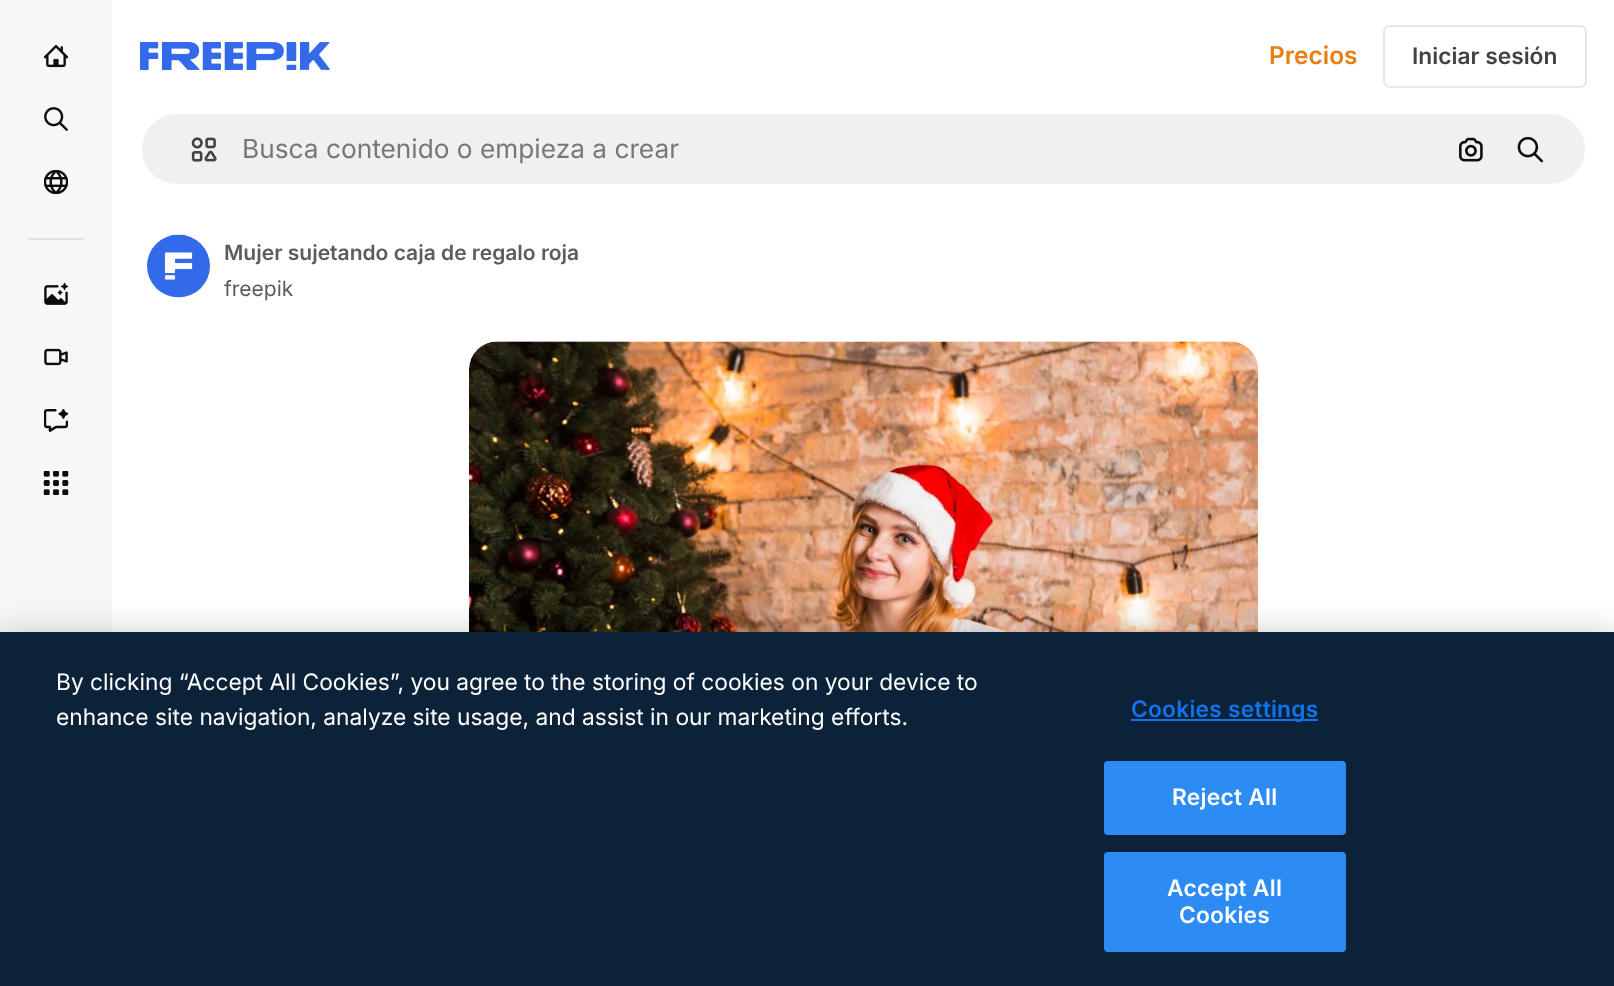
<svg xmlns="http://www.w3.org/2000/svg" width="1614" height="986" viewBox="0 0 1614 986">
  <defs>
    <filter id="blur1" x="-50%" y="-200%" width="200%" height="500%"><feGaussianBlur stdDeviation="16"/></filter>
  </defs>
  <rect width="100%" height="100%" fill="#ffffff"/>
  <rect x="0" y="0" width="112" height="632" fill="#f7f7f7"/>
  <image x="44" y="45" width="24" height="23" href="img1.png"/>
  <image x="44" y="107" width="24" height="24" href="img2.png"/>
  <image x="44" y="170" width="24" height="24" href="img3.png"/>
  <rect x="28" y="238" width="56" height="2" fill="#e0e0e0"/>
  <image x="44" y="282" width="24" height="23" href="img4.png"/>
  <image x="44" y="348" width="24" height="18" href="img5.png"/>
  <image x="44" y="409" width="24" height="23" href="img6.png"/>
  <image x="43" y="471" width="26" height="24" href="img7.png"/>
  <image x="140" y="42" width="190" height="28" href="img8.png"/>
  <text x="1269" y="64" font-family="Inter" font-size="24.5" font-weight="600" fill="#ea7e11">Precios</text>
  <rect x="1384" y="26" width="202" height="61" rx="6" fill="none" stroke="#e7e7e7" stroke-width="2"/>
  <text x="1412" y="64" font-family="Inter" font-size="22.75" font-weight="600" fill="#424242">Iniciar sesión</text>
  <rect x="141" y="113" width="1445" height="72" rx="36" fill="#f0f0f0" stroke="#ffffff" stroke-width="2"/>
  <image x="191" y="137" width="26" height="25" href="img9.png"/>
  <text x="242" y="158" font-family="Inter" font-size="26.25" fill="#777777">Busca contenido o empieza a crear</text>
  <image x="1459" y="137" width="24" height="25" href="img10.png"/>
  <image x="1517" y="137" width="27" height="26" href="img11.png"/>
  <image x="147" y="234" width="63" height="64" href="img12.png"/>
  <text x="224" y="260" font-family="Inter" font-size="21" font-weight="600" fill="#5c5c5c">Mujer sujetando caja de regalo roja</text>
  <text x="224" y="296" font-family="Inter" font-size="21" fill="#5c5c5c">freepik</text>
  <image x="469" y="341" width="789" height="291" href="img13.png"/>
  <rect x="0" y="632" width="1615" height="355" fill="#000000" fill-opacity="0.2" filter="url(#blur1)"/>
  <rect x="0" y="632" width="1614" height="354" fill="#0b2239"/>
  <text x="56" y="690" font-family="Inter" font-size="22.75" fill="#ffffff">By clicking “Accept All Cookies”, you agree to the storing of cookies on your device to</text>
  <text x="56" y="725" font-family="Inter" font-size="22.75" fill="#ffffff">enhance site navigation, analyze site usage, and assist in our marketing efforts.</text>
  <rect x="1131" y="719" width="187" height="2" fill="#1273eb"/>
  <text x="1131" y="717" font-family="Inter" font-size="22.75" font-weight="600" letter-spacing="0.25" fill="#1273eb">Cookies settings</text>
  <rect x="1105" y="762" width="240" height="72" rx="3" fill="#2c8cf4" stroke="#2c8cf4" stroke-width="2"/>
  <text x="1172" y="805" font-family="Inter" font-size="22.75" font-weight="600" letter-spacing="0.25" fill="#ffffff">Reject All</text>
  <rect x="1105" y="853" width="240" height="98" rx="3" fill="#2c8cf4" stroke="#2c8cf4" stroke-width="2"/>
  <text x="1167" y="896" font-family="Inter" font-size="22.75" font-weight="600" letter-spacing="0.25" fill="#ffffff">Accept All</text>
  <text x="1179" y="923" font-family="Inter" font-size="22.75" font-weight="600" letter-spacing="0.25" fill="#ffffff">Cookies</text>
</svg>
